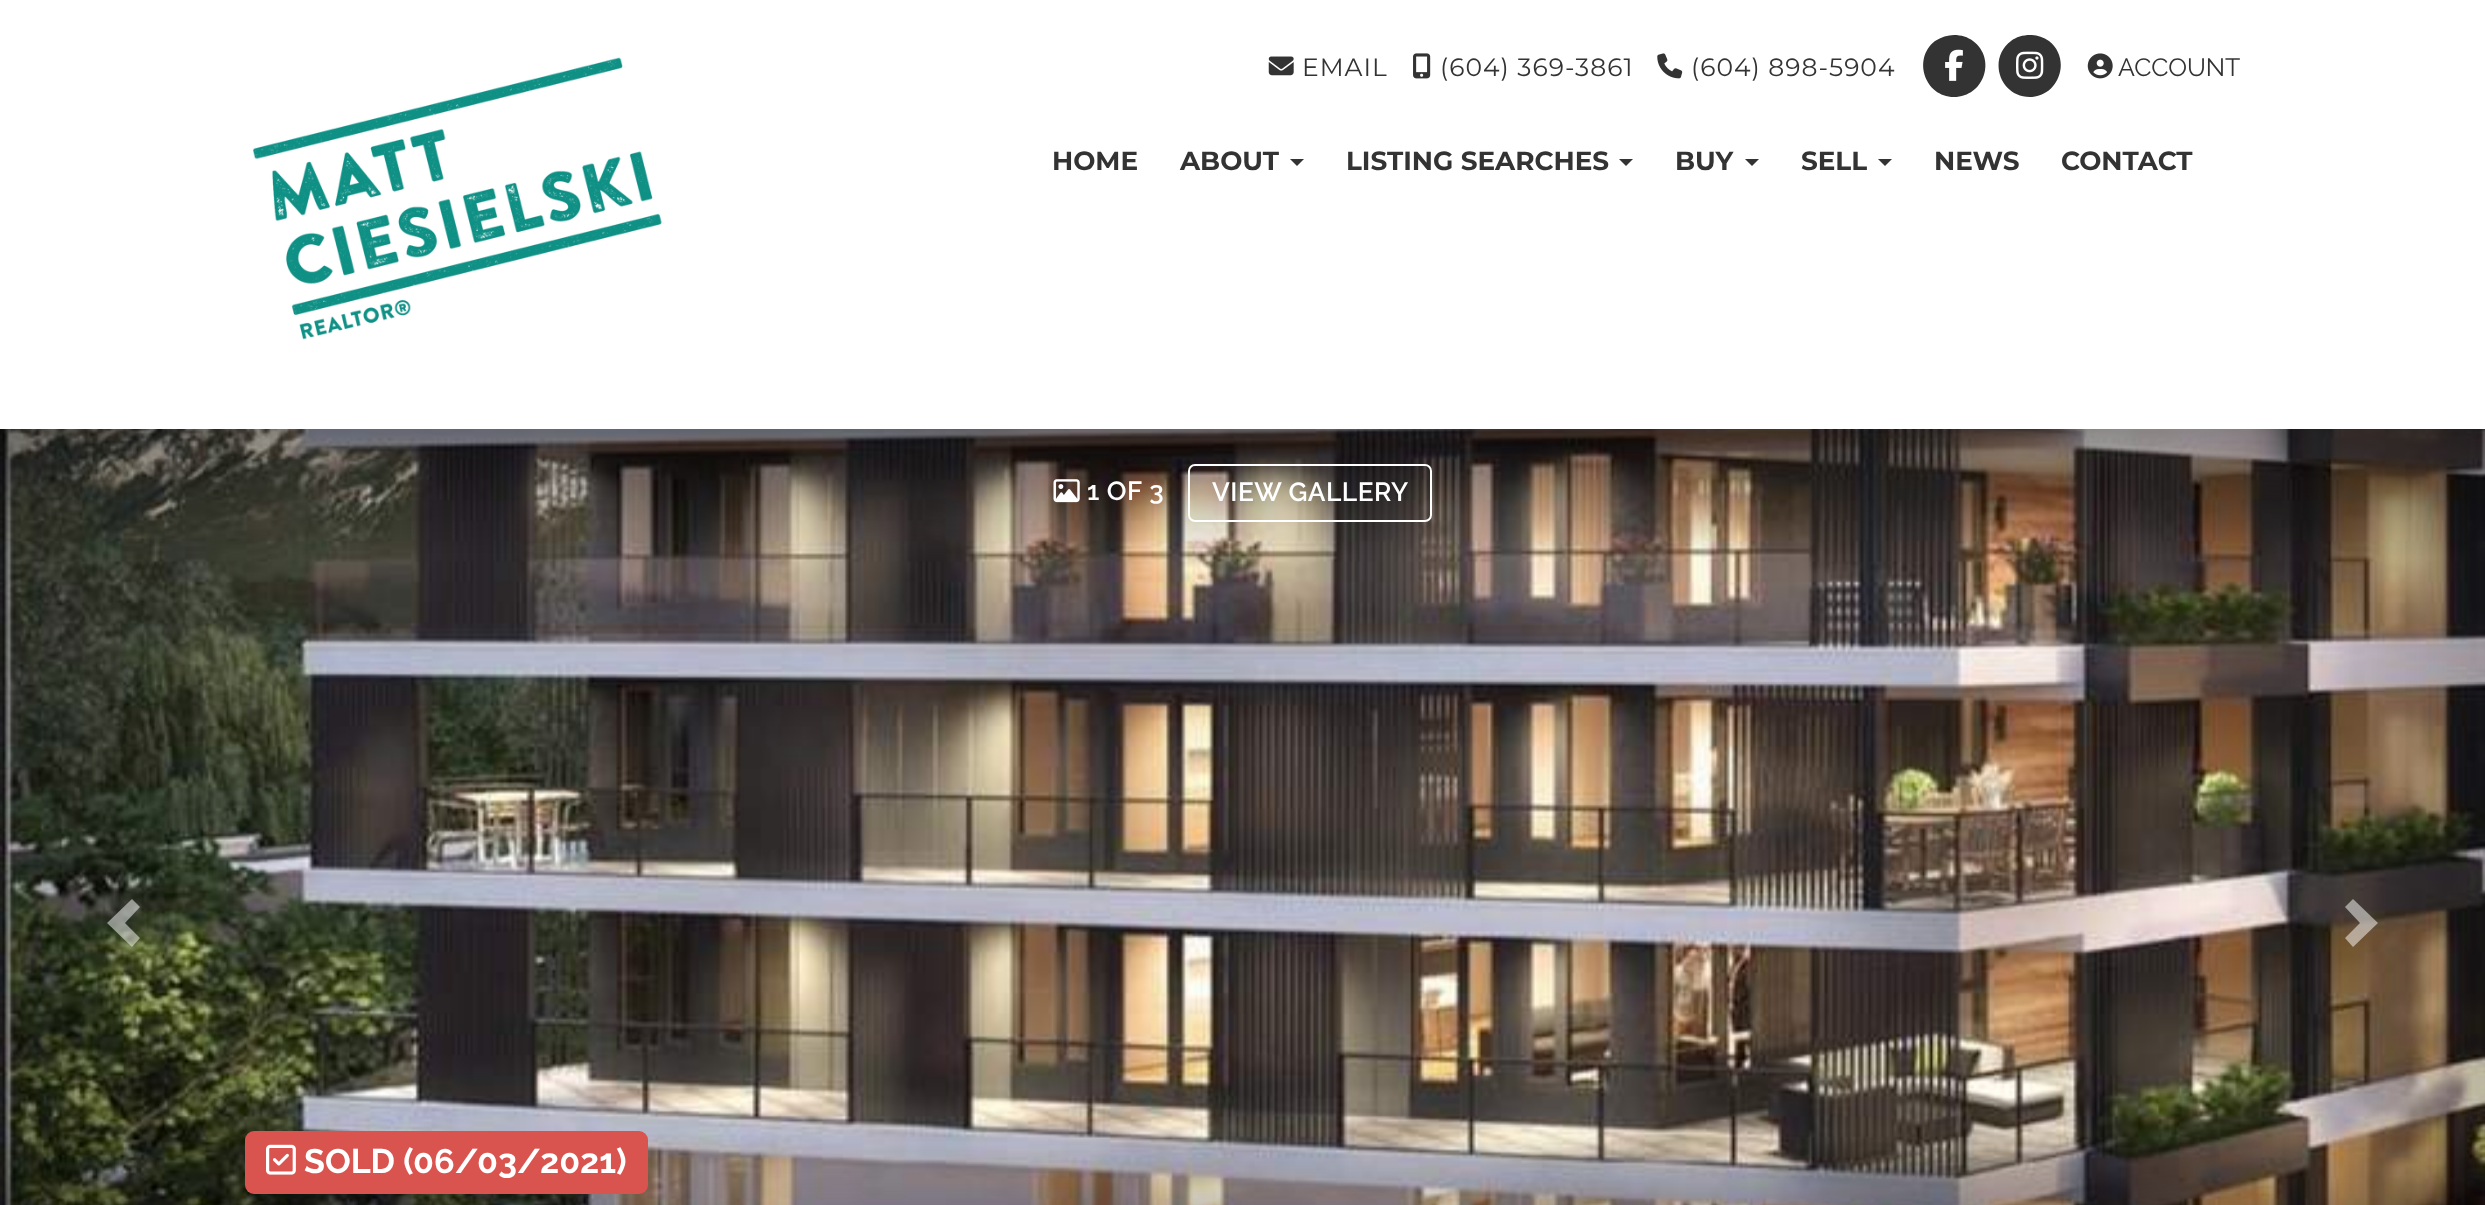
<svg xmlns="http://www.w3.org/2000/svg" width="2485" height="1205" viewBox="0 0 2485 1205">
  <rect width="100%" height="100%" fill="#ffffff"/>
  <image x="252" y="57" width="413" height="283" href="img1.png"/>
  <image x="1268" y="56" width="26" height="20" href="img2.png"/>
  <text x="1302" y="76" font-family="Montserrat" font-size="25" letter-spacing="1" fill="#333333">EMAIL</text>
  <image x="1413" y="53" width="18" height="26" href="img3.png"/>
  <text x="1440" y="76" font-family="Montserrat" font-size="25" letter-spacing="1" fill="#333333">(604) 369-3861</text>
  <image x="1657" y="53" width="26" height="26" href="img4.png"/>
  <text x="1691" y="76" font-family="Montserrat" font-size="25" letter-spacing="1" fill="#333333">(604) 898-5904</text>
  <path d="M1954 97C1984 97 1997 59 1973 41C1968 37 1961 35 1954 35C1948 35 1941 37 1935 41C1912 59 1925 97 1954 97Z" fill="#333333"/>
  <image x="1945" y="49" width="18" height="32" href="img5.png"/>
  <path d="M2030 97C2059 97 2072 59 2049 41C2043 37 2036 35 2030 35C2023 35 2016 37 2011 41C1987 59 2000 97 2030 97Z" fill="#333333"/>
  <image x="2016" y="51" width="28" height="28" href="img6.png"/>
  <image x="2087" y="53" width="26" height="26" href="img7.png"/>
  <text x="2118" y="76" font-family="Raleway" font-size="25" fill="#333333">ACCOUNT</text>
  <text x="1052" y="170" font-family="Montserrat" font-size="26.25" font-weight="bold" fill="#333333">HOME</text>
  <text x="1180" y="170" font-family="Montserrat" font-size="26.25" font-weight="bold" fill="#333333">ABOUT</text>
  <path d="M1290 159H1304L1297 166Z" fill="#333333"/>
  <text x="1346" y="170" font-family="Montserrat" font-size="26.25" font-weight="bold" fill="#333333">LISTING SEARCHES</text>
  <path d="M1619 159H1633L1626 166Z" fill="#333333"/>
  <text x="1675" y="170" font-family="Montserrat" font-size="26.25" font-weight="bold" fill="#333333">BUY</text>
  <path d="M1745 159H1759L1752 166Z" fill="#333333"/>
  <text x="1801" y="170" font-family="Montserrat" font-size="26.25" font-weight="bold" fill="#333333">SELL</text>
  <path d="M1878 159H1892L1885 166Z" fill="#333333"/>
  <text x="1934" y="170" font-family="Montserrat" font-size="26.25" font-weight="bold" fill="#333333">NEWS</text>
  <text x="2061" y="170" font-family="Montserrat" font-size="26.25" font-weight="bold" fill="#333333">CONTACT</text>
  <image x="0" y="429" width="2485" height="776" href="img8.png"/>
  <image x="1053" y="479" width="27" height="24" href="img9.png"/>
  <text x="1087" y="500" font-family="Raleway" font-size="26.25" font-weight="600" letter-spacing="0.5" fill="#ffffff">1 OF 3</text>
  <rect x="1189" y="465" width="242" height="56" rx="6" fill="none" stroke="#ffffff" stroke-width="2"/>
  <text x="1212" y="501" font-family="Raleway" font-size="26.25" font-weight="600" letter-spacing="0.5" fill="#ffffff">VIEW GALLERY</text>
  <path d="M140 907L125 923L140 938L132 947L107 923L132 899Z" fill="#ffffff" fill-opacity="0.5"/>
  <path d="M2378 923L2353 947L2345 938L2360 923L2345 907L2353 899Z" fill="#ffffff" fill-opacity="0.5"/>
  <rect x="245" y="1131" width="403" height="63" rx="9" fill="#d9534f"/>
  <image x="266" y="1144" width="30" height="31" href="img10.png"/>
  <text x="304" y="1173" font-family="Raleway" font-size="34.1" font-weight="bold" fill="#ffffff">SOLD (06/03/2021)</text>
</svg>
